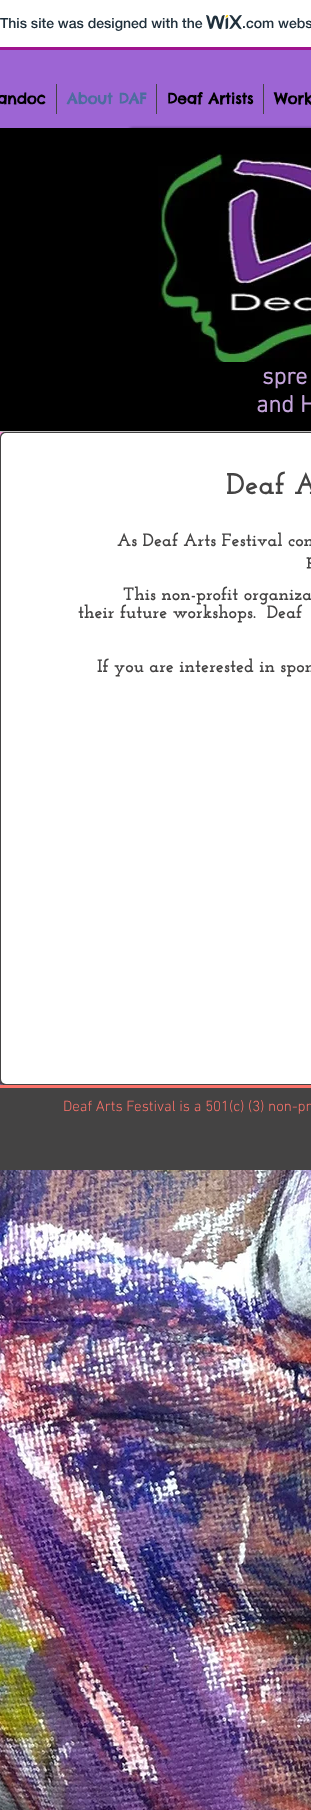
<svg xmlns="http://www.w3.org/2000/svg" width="311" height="1810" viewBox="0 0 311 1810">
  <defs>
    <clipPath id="clip1"><path d="M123 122H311V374H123ZM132 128H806C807.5 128 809 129.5 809 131V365C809 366.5 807.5 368 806 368H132C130.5 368 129 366.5 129 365V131C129 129.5 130.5 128 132 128Z" clip-rule="evenodd"/></clipPath>
    <filter id="blur1" x="-50%" y="-200%" width="200%" height="500%"><feGaussianBlur stdDeviation="1.5"/></filter>
  </defs>
  <rect width="100%" height="100%" fill="#ffffff"/>
  <rect x="0" y="47" width="311" height="3" fill="#a0138e"/>
  <text x="0" y="28" font-family="'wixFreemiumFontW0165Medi'" font-size="14" font-weight="500" fill="#20303c">This site was designed with the</text>
  <image x="206" y="15" width="36" height="15" href="img1.png"/>
  <text x="242" y="28" font-family="'wixFreemiumFontW0165Medi'" font-size="14" font-weight="500" fill="#20303c">.com webs</text>
  <rect x="0" y="50" width="311" height="78" fill="#9d65d4"/>
  <text x="-3" y="104" font-family="Chelsea Market" font-size="15" font-weight="bold" fill="#000000">andoc</text>
  <rect x="56" y="84" width="1" height="30" fill="#444343"/>
  <text x="67" y="104" font-family="Chelsea Market" font-size="15" font-weight="bold" fill="#4d6c9f">About DAF</text>
  <rect x="156" y="84" width="1" height="30" fill="#444343"/>
  <text x="167" y="104" font-family="Chelsea Market" font-size="15" font-weight="bold" fill="#000000">Deaf Artists</text>
  <rect x="263" y="84" width="1" height="30" fill="#444343"/>
  <text x="274" y="104" font-family="Chelsea Market" font-size="15" font-weight="bold" fill="#000000">Work</text>
  <rect x="0" y="128" width="311" height="303" fill="#000000"/>
  <g clip-path="url(#clip1)">
    <rect x="129" y="128" width="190" height="240" rx="3" fill="#000000" fill-opacity="0.5" filter="url(#blur1)"/>
  </g>
  <image x="158" y="150" width="153" height="212" href="img2.png"/>
  <text x="262" y="384" font-family="'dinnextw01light'" font-size="24" font-weight="bold" fill="#c4a4da">spre</text>
  <text x="256" y="412" font-family="'dinnextw01light'" font-size="24" font-weight="bold" fill="#c4a4da">and H</text>
  <rect x="0" y="431" width="311" height="1" fill="#bfbfbf"/>
  <image x="0" y="432" width="311" height="1378" href="img3.png"/>
  <rect x="0" y="432" width="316" height="653" rx="5" fill="#444343"/>
  <rect x="1" y="433" width="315" height="651" rx="5" fill="#ffffff"/>
  <text x="226" y="494" font-family="Josefin Slab" font-size="30" font-weight="bold" fill="#444343">Deaf A</text>
  <text x="117" y="546" font-family="Josefin Slab" font-size="18" font-weight="bold" fill="#444343">As Deaf Arts Festival con</text>
  <text x="306" y="564" font-family="Josefin Slab" font-size="18" font-weight="bold" fill="#444343">p</text>
  <text x="123" y="600" font-family="Josefin Slab" font-size="18" font-weight="bold" fill="#444343">This non-profit organiza</text>
  <text x="78" y="618" font-family="Josefin Slab" font-size="18" font-weight="bold" fill="#444343" xml:space="preserve">their future workshops.  Deaf</text>
  <text x="97" y="672" font-family="Josefin Slab" font-size="18" font-weight="bold" fill="#444343">If you are interested in spon</text>
  <rect x="0" y="1088" width="311" height="82" fill="#444343"/>
  <rect x="0" y="1085" width="311" height="3" fill="#fc736b"/>
  <text x="63" y="1111" font-family="'dinnextw01light'" font-size="15" font-weight="300" fill="#fc736b">Deaf Arts Festival is a 501(c) (3) non-pr</text>
</svg>
